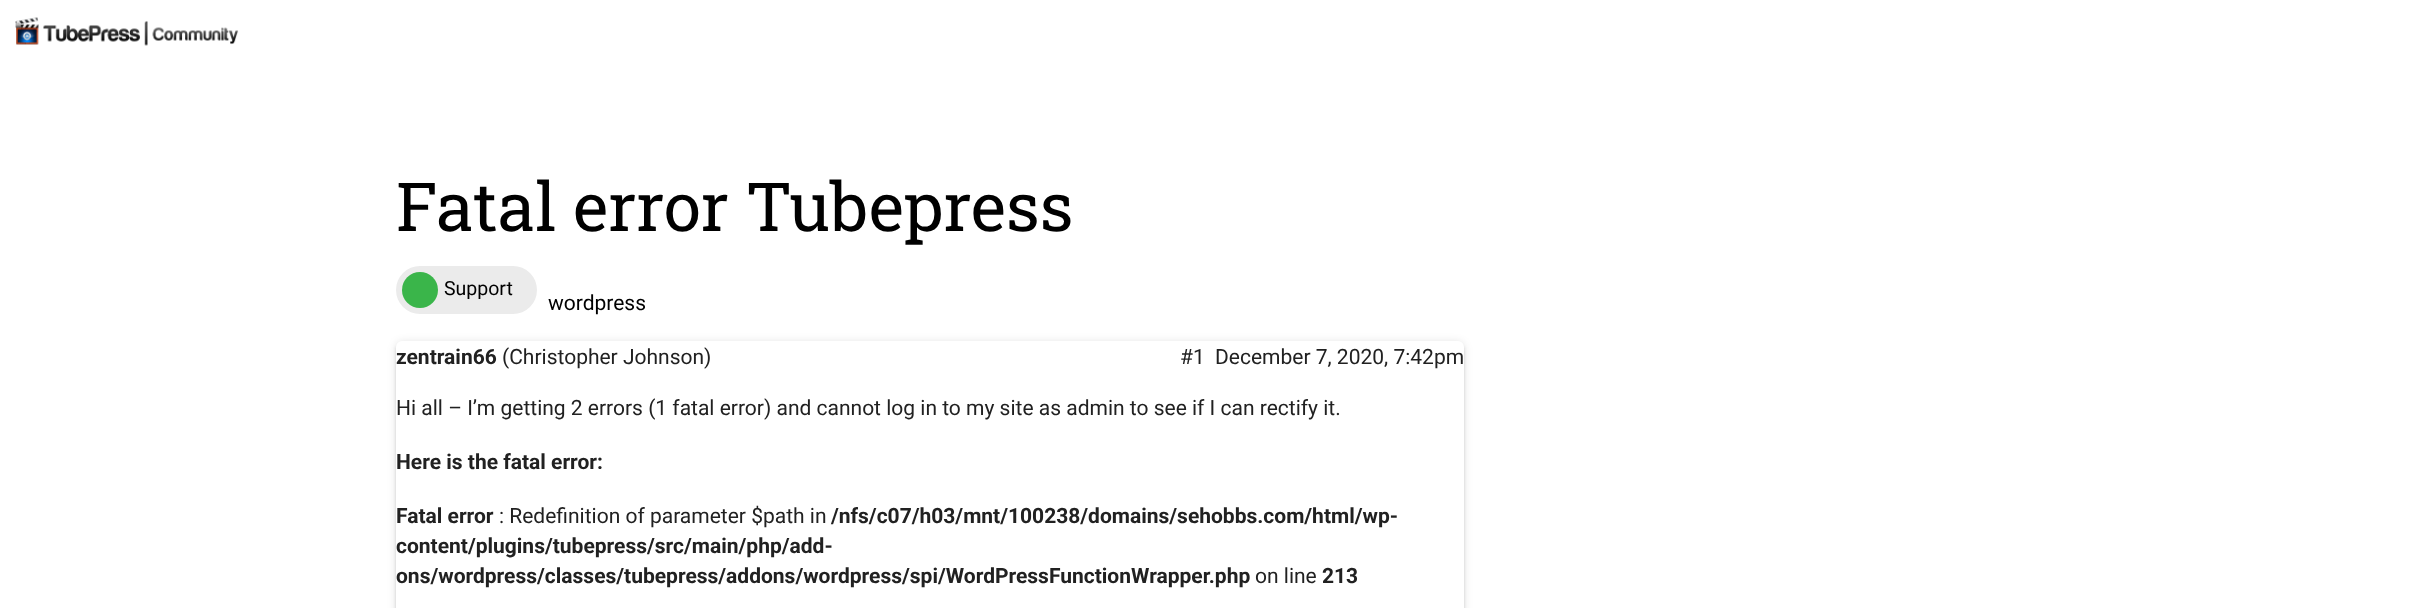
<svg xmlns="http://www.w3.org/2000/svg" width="2433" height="608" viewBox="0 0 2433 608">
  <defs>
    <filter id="blur1" x="-50%" y="-200%" width="200%" height="500%"><feGaussianBlur stdDeviation="4"/></filter>
    <filter id="blur2" x="-50%" y="-200%" width="200%" height="500%"><feGaussianBlur stdDeviation="1.5"/></filter>
  </defs>
  <rect width="100%" height="100%" fill="#ffffff"/>
  <image x="15" y="17" width="224" height="29" href="img1.png"/>
  <text x="396" y="231" font-family="Roboto Slab" font-size="67.5" fill="#000000">Fatal error Tubepress</text>
  <rect x="396" y="266" width="141" height="48" rx="24" fill="#ebebeb"/>
  <circle cx="420" cy="290" r="18" fill="#3ab54a"/>
  <text x="444" y="295" font-family="Roboto" font-size="19.5" fill="#000000">Support</text>
  <text x="548" y="310" font-family="Roboto" font-size="21" fill="#000000">wordpress</text>
  <rect x="396" y="342" width="1068" height="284" rx="6" fill="#000000" fill-opacity="0.12" filter="url(#blur1)"/>
  <rect x="396" y="344" width="1068" height="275" rx="6" fill="#000000" fill-opacity="0.14" filter="url(#blur2)"/>
  <rect x="396" y="341" width="1068" height="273" rx="6" fill="#ffffff"/>
  <text x="396" y="364" font-family="Roboto" font-size="21" font-weight="bold" fill="#212121">zentrain66</text>
  <text x="502" y="364" font-family="Roboto" font-size="21" fill="#212121">(Christopher Johnson)</text>
  <text x="1180" y="364" font-family="Roboto" font-size="21" fill="#212121">#1</text>
  <text x="1215" y="364" font-family="Roboto" font-size="21" fill="#212121">December 7, 2020, 7:42pm</text>
  <text x="396" y="415" font-family="Roboto" font-size="21" fill="#212121">Hi all – I’m getting 2 errors (1 fatal error) and cannot log in to my site as admin to see if I can rectify it.</text>
  <text x="396" y="469" font-family="Roboto" font-size="21" font-weight="bold" fill="#212121">Here is the fatal error:</text>
  <text x="396" y="523" font-family="Roboto" font-size="21" font-weight="bold" fill="#212121">Fatal error</text>
  <text x="499" y="523" font-family="Roboto" font-size="21" fill="#212121">: Redefinition of parameter $path in</text>
  <text x="831" y="523" font-family="Roboto" font-size="21" font-weight="bold" fill="#212121">/nfs/c07/h03/mnt/100238/domains/sehobbs.com/html/wp-</text>
  <text x="396" y="553" font-family="Roboto" font-size="21" font-weight="bold" fill="#212121">content/plugins/tubepress/src/main/php/add-</text>
  <text x="396" y="583" font-family="Roboto" font-size="21" font-weight="bold" fill="#212121">ons/wordpress/classes/tubepress/addons/wordpress/spi/WordPressFunctionWrapper.php</text>
  <text x="1255" y="583" font-family="Roboto" font-size="21" fill="#212121">on line</text>
  <text x="1322" y="583" font-family="Roboto" font-size="21" font-weight="bold" fill="#212121">213</text>
</svg>
